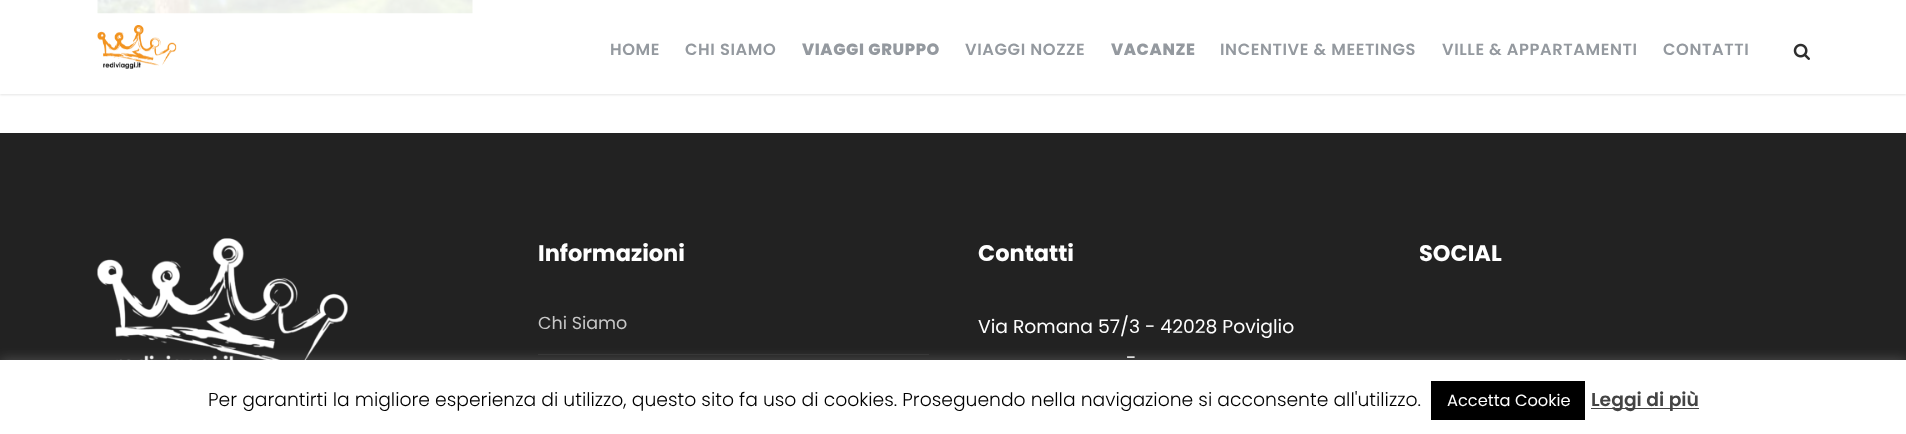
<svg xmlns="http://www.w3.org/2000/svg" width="1906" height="434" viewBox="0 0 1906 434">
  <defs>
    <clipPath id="clip1"><path d="M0 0H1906V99H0ZM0 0H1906V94H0Z" clip-rule="evenodd"/></clipPath>
    <filter id="blur1" x="-50%" y="-200%" width="200%" height="500%"><feGaussianBlur stdDeviation="1"/></filter>
    <filter id="blur2" x="-50%" y="-200%" width="200%" height="500%"><feGaussianBlur stdDeviation="6"/></filter>
  </defs>
  <rect width="100%" height="100%" fill="#ffffff"/>
  <image x="97" y="0" width="376" height="14" href="img3.png"/>
  <g clip-path="url(#clip1)">
    <rect x="0" y="1" width="1906" height="94" fill="#000000" fill-opacity="0.1" filter="url(#blur1)"/>
  </g>
  <rect x="0" y="0" width="1906" height="94" fill="#ffffff" fill-opacity="0.9"/>
  <image x="97" y="25" width="80" height="44" href="img1.png"/>
  <text x="610" y="55" font-family="Poppins" font-size="16.25" font-weight="600" letter-spacing="0.6" fill="#94999f">HOME</text>
  <text x="685" y="55" font-family="Poppins" font-size="16.25" font-weight="600" letter-spacing="0.6" fill="#94999f">CHI SIAMO</text>
  <text x="802" y="55" font-family="Poppins" font-size="16.25" font-weight="800" letter-spacing="0.6" fill="#94999f">VIAGGI GRUPPO</text>
  <text x="965" y="55" font-family="Poppins" font-size="16.25" font-weight="600" letter-spacing="0.6" fill="#94999f">VIAGGI NOZZE</text>
  <text x="1111" y="55" font-family="Poppins" font-size="16.25" font-weight="800" letter-spacing="0.6" fill="#94999f">VACANZE</text>
  <text x="1220" y="55" font-family="Poppins" font-size="16.25" font-weight="600" letter-spacing="0.6" fill="#94999f">INCENTIVE &amp; MEETINGS</text>
  <text x="1442" y="55" font-family="Poppins" font-size="16.25" font-weight="600" letter-spacing="0.6" fill="#94999f">VILLE &amp; APPARTAMENTI</text>
  <text x="1663" y="55" font-family="Poppins" font-size="16.25" font-weight="600" letter-spacing="0.6" fill="#94999f">CONTATTI</text>
  <image x="1793" y="43" width="17" height="17" href="img2.png"/>
  <rect x="0" y="133" width="1906" height="227" fill="#222222"/>
  <image x="97" y="238" width="251" height="122" href="img4.png"/>
  <text x="538" y="261" font-family="Poppins" font-size="22.5" font-weight="bold" fill="#ffffff">Informazioni</text>
  <rect x="538" y="354" width="391" height="1" fill="#303030"/>
  <text x="538" y="329" font-family="Poppins" font-size="17.5" fill="#c7c7c7">Chi Siamo</text>
  <text x="978" y="261" font-family="Poppins" font-size="22.5" font-weight="bold" fill="#ffffff">Contatti</text>
  <text x="978" y="333" font-family="Poppins" font-size="18.75" fill="#ffffff">Via Romana 57/3 - 42028 Poviglio</text>
  <text x="1126" y="364" font-family="Poppins" font-size="18.75" fill="#ffffff">-</text>
  <text x="1419" y="261" font-family="Poppins" font-size="22.5" font-weight="bold" fill="#ffffff">SOCIAL</text>
  <rect x="0" y="359" width="1906" height="75" fill="#acabab" fill-opacity="0.3" filter="url(#blur2)"/>
  <rect x="0" y="360" width="1906" height="74" fill="#ffffff"/>
  <text x="208" y="406" font-family="Poppins" font-size="18.75" font-weight="300" fill="#000000">Per garantirti la migliore esperienza di utilizzo, questo sito fa uso di cookies. Proseguendo nella navigazione si acconsente all'utilizzo.</text>
  <rect x="1431" y="381" width="154" height="39" fill="#000000"/>
  <text x="1447" y="406" font-family="Poppins" font-size="16.25" fill="#ffffff">Accetta Cookie</text>
  <rect x="1591" y="408" width="108" height="1" fill="#444444"/>
  <text x="1591" y="406" font-family="Poppins" font-size="18.75" font-weight="600" fill="#444444">Leggi di più</text>
</svg>
